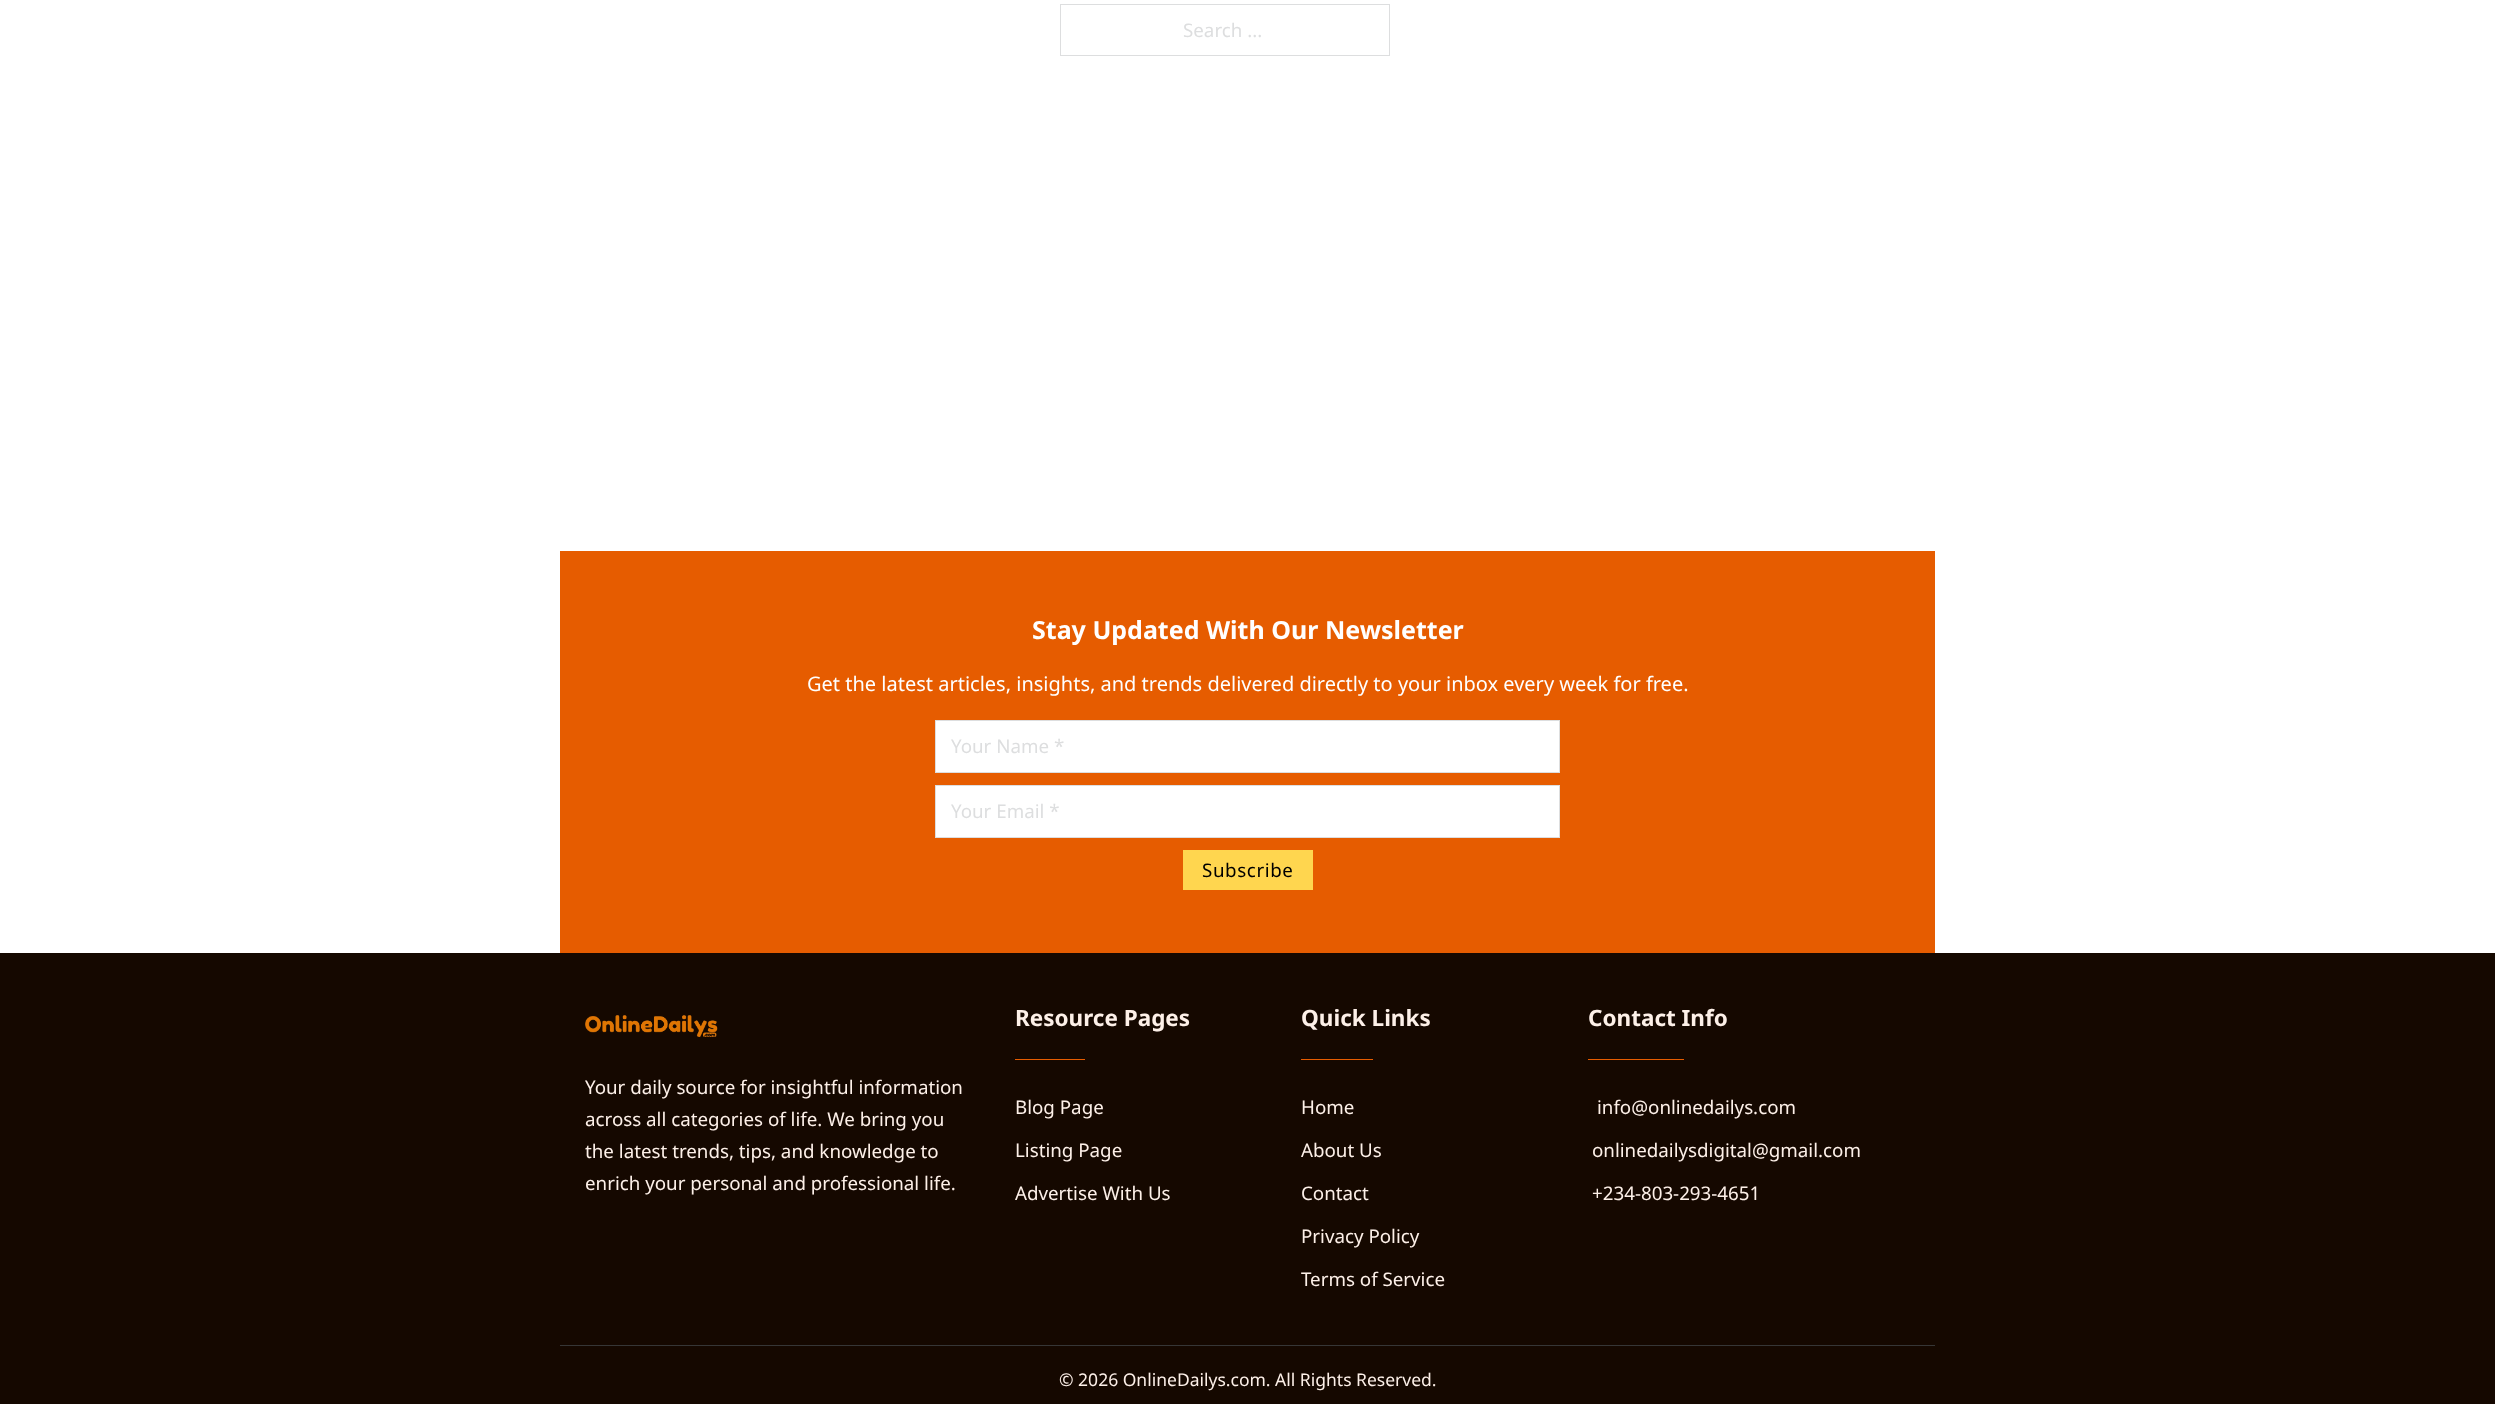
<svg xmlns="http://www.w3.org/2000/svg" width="2495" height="1404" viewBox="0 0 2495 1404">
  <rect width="100%" height="100%" fill="#ffffff"/>
  <rect x="1060.5" y="4.5" width="329" height="51" fill="none" stroke="#dddedf"/>
  <text x="1183" y="37" font-family="Noto Sans" font-size="18.75" fill="#dddedf">Search ...</text>
  <rect x="560" y="551" width="1375" height="402" fill="#e65c00"/>
  <text x="1032" y="639" font-family="Noto Sans" font-size="25" font-weight="bold" fill="#ffffff">Stay Updated With Our Newsletter</text>
  <text x="807" y="691" font-family="Noto Sans" font-size="20" fill="#ffffff">Get the latest articles, insights, and trends delivered directly to your inbox every week for free.</text>
  <rect x="935.5" y="720.5" width="624" height="52" fill="#ffffff" stroke="#dddedf"/>
  <text x="951" y="753" font-family="Noto Sans" font-size="18.75" fill="#dddedf">Your Name *</text>
  <rect x="935.5" y="785.5" width="624" height="52" fill="#ffffff" stroke="#dddedf"/>
  <text x="951" y="818" font-family="Noto Sans" font-size="18.75" fill="#dddedf">Your Email *</text>
  <rect x="1183" y="850" width="130" height="40" fill="#ffd64f"/>
  <text x="1202" y="877" font-family="Noto Sans" font-size="18.75" letter-spacing="0.6" fill="#000000">Subscribe</text>
  <rect x="0" y="953" width="2495" height="451" fill="#150800"/>
  <image x="585" y="1015" width="133" height="22" href="img1.png"/>
  <text x="585" y="1094" font-family="Noto Sans" font-size="18.75" fill="#fdf0e8">Your daily source for insightful information</text>
  <text x="585" y="1126" font-family="Noto Sans" font-size="18.75" fill="#fdf0e8">across all categories of life. We bring you</text>
  <text x="585" y="1158" font-family="Noto Sans" font-size="18.75" fill="#fdf0e8">the latest trends, tips, and knowledge to</text>
  <text x="585" y="1190" font-family="Noto Sans" font-size="18.75" fill="#fdf0e8">enrich your personal and professional life.</text>
  <text x="1015" y="1026" font-family="Noto Sans" font-size="22.5" font-weight="bold" fill="#fdf0e8">Resource Pages</text>
  <rect x="1015" y="1059" width="70" height="1" fill="#e65c00"/>
  <text x="1015" y="1114" font-family="Noto Sans" font-size="18.75" fill="#fdf0e8">Blog Page</text>
  <text x="1015" y="1157" font-family="Noto Sans" font-size="18.75" fill="#fdf0e8">Listing Page</text>
  <text x="1015" y="1200" font-family="Noto Sans" font-size="18.75" fill="#fdf0e8">Advertise With Us</text>
  <text x="1301" y="1026" font-family="Noto Sans" font-size="22.5" font-weight="bold" fill="#fdf0e8">Quick Links</text>
  <rect x="1301" y="1059" width="72" height="1" fill="#e65c00"/>
  <text x="1301" y="1114" font-family="Noto Sans" font-size="18.75" fill="#fdf0e8">Home</text>
  <text x="1301" y="1157" font-family="Noto Sans" font-size="18.75" fill="#fdf0e8">About Us</text>
  <text x="1301" y="1200" font-family="Noto Sans" font-size="18.75" fill="#fdf0e8">Contact</text>
  <text x="1301" y="1243" font-family="Noto Sans" font-size="18.75" fill="#fdf0e8">Privacy Policy</text>
  <text x="1301" y="1286" font-family="Noto Sans" font-size="18.75" fill="#fdf0e8">Terms of Service</text>
  <text x="1588" y="1026" font-family="Noto Sans" font-size="22.5" font-weight="bold" fill="#fdf0e8">Contact Info</text>
  <rect x="1588" y="1059" width="96" height="1" fill="#e65c00"/>
  <text x="1597" y="1114" font-family="Noto Sans" font-size="18.75" fill="#fdf0e8">info@onlinedailys.com</text>
  <text x="1592" y="1157" font-family="Noto Sans" font-size="18.75" fill="#fdf0e8">onlinedailysdigital@gmail.com</text>
  <text x="1592" y="1200" font-family="Noto Sans" font-size="18.75" fill="#fdf0e8">+234-803-293-4651</text>
  <rect x="560" y="1345" width="1375" height="1" fill="#363636"/>
  <text x="1059" y="1386" font-family="Noto Sans" font-size="17.5" fill="#fdf0e8">© 2026 OnlineDailys.com. All Rights Reserved.</text>
</svg>
